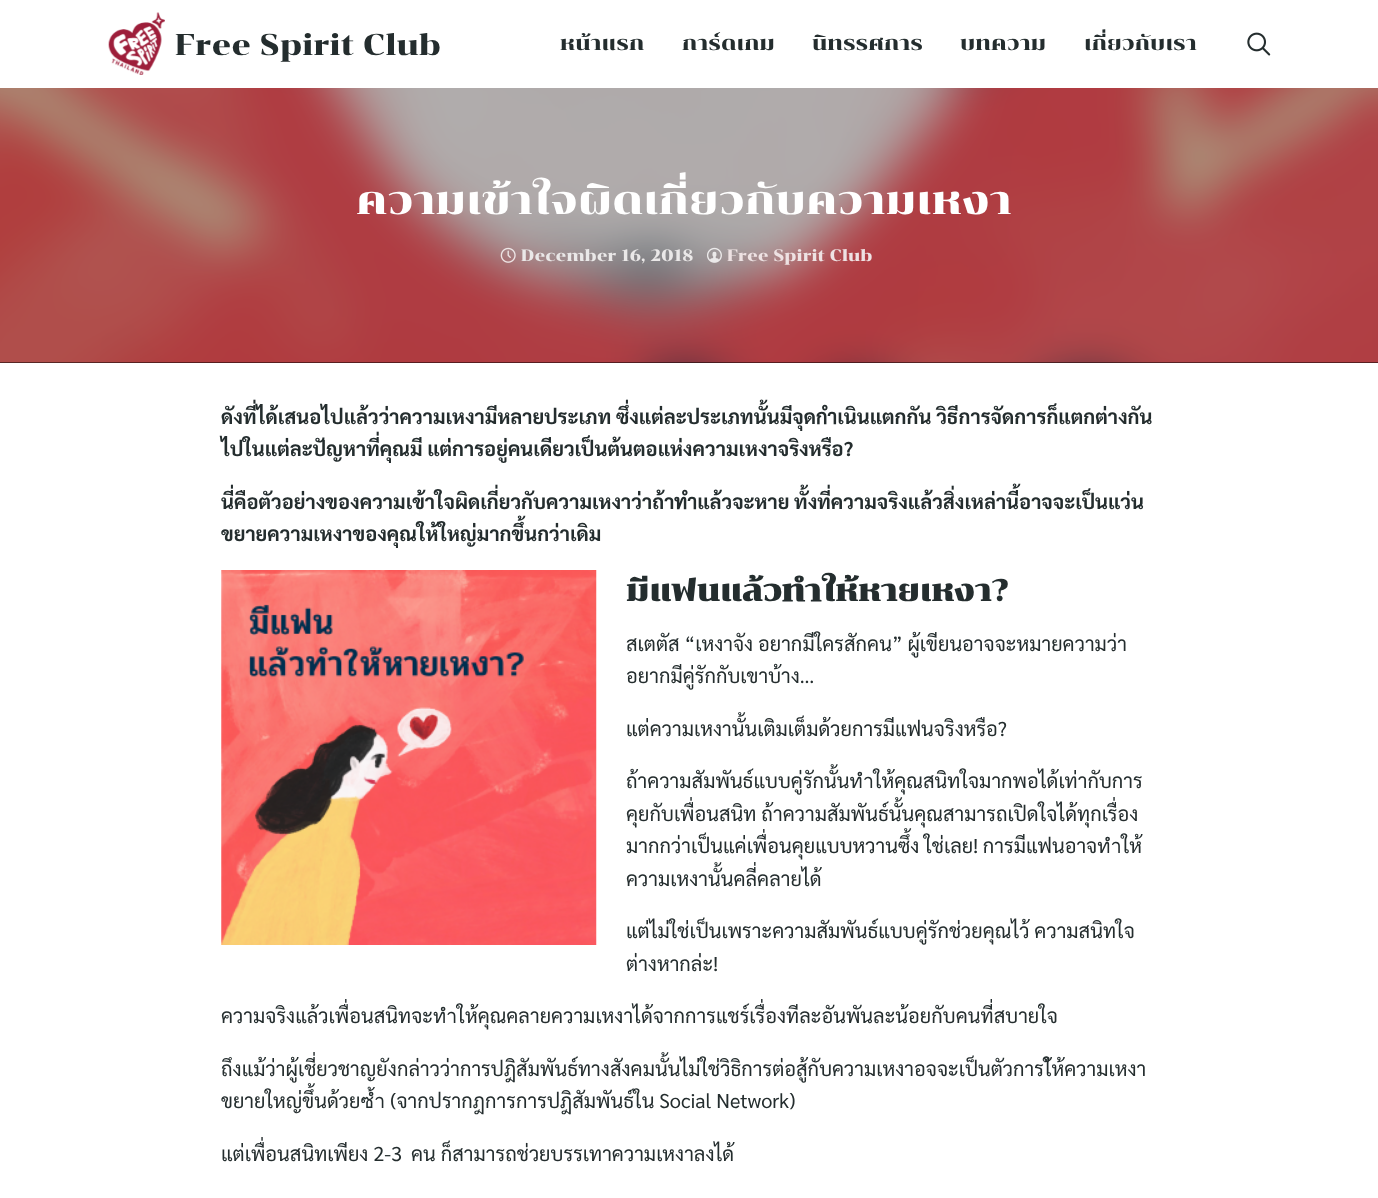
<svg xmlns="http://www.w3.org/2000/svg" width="1378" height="1198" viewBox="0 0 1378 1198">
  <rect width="100%" height="100%" fill="#ffffff"/>
  <image x="108" y="12" width="57" height="63" href="img1.png"/>
  <text x="175" y="55" font-family="Chonburi" font-size="30" fill="#242d2e">Free Spirit Club</text>
  <text x="560" y="50" font-family="Chonburi" font-size="20" fill="#242d2e">หน้าแรก</text>
  <text x="682" y="50" font-family="Chonburi" font-size="20" fill="#242d2e">การ์ดเกม</text>
  <text x="812" y="50" font-family="Chonburi" font-size="20" fill="#242d2e">นิทรรศการ</text>
  <text x="960" y="50" font-family="Chonburi" font-size="20" fill="#242d2e">บทความ</text>
  <text x="1084" y="50" font-family="Chonburi" font-size="20" fill="#242d2e">เกี่ยวกับเรา</text>
  <image x="1247" y="32" width="24" height="24" href="img2.png"/>
  <rect x="0" y="88" width="1378" height="275" fill="#000000"/>
  <image x="0" y="88" width="1378" height="275" href="img3.png"/>
  <text x="356" y="214" font-family="Chonburi" font-size="40" fill="#ffffff">ความเข้าใจผิดเกี่ยวกับความเหงา</text>
  <image x="500" y="247" width="16" height="16" href="img4.png"/>
  <text x="521" y="261" font-family="Chonburi" font-size="16.4" fill="#eae8e8">December 16, 2018</text>
  <image x="707" y="247" width="15" height="16" href="img5.png"/>
  <text x="727" y="261" font-family="Chonburi" font-size="16.4" fill="#eee2e3">Free Spirit Club</text>
  <text x="221" y="424" font-family="Sarabun" font-size="20" font-weight="bold" fill="#242d2e">ดังที่ได้เสนอไปแล้วว่าความเหงามีหลายประเภท ซึ่งแต่ละประเภทนั้นมีจุดกำเนินแตกกัน วิธีการจัดการก็แตกต่างกัน</text>
  <text x="221" y="456" font-family="Sarabun" font-size="20" font-weight="bold" fill="#242d2e">ไปในแต่ละปัญหาที่คุณมี แต่การอยู่คนเดียวเป็นต้นตอแห่งความเหงาจริงหรือ?</text>
  <text x="221" y="509" font-family="Sarabun" font-size="20" font-weight="bold" fill="#242d2e">นี่คือตัวอย่างของความเข้าใจผิดเกี่ยวกับความเหงาว่าถ้าทำแล้วจะหาย ทั้งที่ความจริงแล้วสิ่งเหล่านี้อาจจะเป็นแว่น</text>
  <text x="221" y="541" font-family="Sarabun" font-size="20" font-weight="bold" fill="#242d2e">ขยายความเหงาของคุณให้ใหญ่มากขึ้นกว่าเดิม</text>
  <image x="221" y="570" width="376" height="375" href="img6.png"/>
  <text x="626" y="601" font-family="Chonburi" font-size="30" font-weight="bold" fill="#242d2e">มีแฟนแล้วทำให้หายเหงา?</text>
  <text x="626" y="651" font-family="Sarabun" font-size="20" fill="#242d2e">สเตตัส “เหงาจัง อยากมีใครสักคน” ผู้เขียนอาจจะหมายความว่า</text>
  <text x="626" y="683" font-family="Sarabun" font-size="20" fill="#242d2e">อยากมีคู่รักกับเขาบ้าง…</text>
  <text x="626" y="736" font-family="Sarabun" font-size="20" fill="#242d2e">แต่ความเหงานั้นเติมเต็มด้วยการมีแฟนจริงหรือ?</text>
  <text x="626" y="788" font-family="Sarabun" font-size="20" fill="#242d2e">ถ้าความสัมพันธ์แบบคู่รักนั้นทำให้คุณสนิทใจมากพอได้เท่ากับการ</text>
  <text x="626" y="821" font-family="Sarabun" font-size="20" fill="#242d2e">คุยกับเพื่อนสนิท ถ้าความสัมพันธ์นั้นคุณสามารถเปิดใจได้ทุกเรื่อง</text>
  <text x="626" y="853" font-family="Sarabun" font-size="20" fill="#242d2e">มากกว่าเป็นแค่เพื่อนคุยแบบหวานซึ้ง ใช่เลย! การมีแฟนอาจทำให้</text>
  <text x="626" y="886" font-family="Sarabun" font-size="20" fill="#242d2e">ความเหงานั้นคลี่คลายได้</text>
  <text x="626" y="938" font-family="Sarabun" font-size="20" fill="#242d2e">แต่ไม่ใช่เป็นเพราะความสัมพันธ์แบบคู่รักช่วยคุณไว้ ความสนิทใจ</text>
  <text x="626" y="971" font-family="Sarabun" font-size="20" fill="#242d2e">ต่างหากล่ะ!</text>
  <text x="221" y="1023" font-family="Sarabun" font-size="20" fill="#242d2e">ความจริงแล้วเพื่อนสนิทจะทำให้คุณคลายความเหงาได้จากการแชร์เรื่องทีละอันพันละน้อยกับคนที่สบายใจ</text>
  <text x="221" y="1076" font-family="Sarabun" font-size="20" fill="#242d2e">ถึงแม้ว่าผู้เชี่ยวชาญยังกล่าวว่าการปฎิสัมพันธ์ทางสังคมนั้นไม่ใช่วิธิการต่อสู้กับความเหงาอจจะเป็นตัวการใ้ห้ความเหงา</text>
  <text x="221" y="1108" font-family="Sarabun" font-size="20" fill="#242d2e">ขยายใหญ่ขึ้นด้วยซ้ำ (จากปรากฎการการปฎิสัมพันธ์ใน Social Network)</text>
  <text x="221" y="1161" font-family="Sarabun" font-size="20" fill="#242d2e">แต่เพื่อนสนิทเพียง 2-3</text>
  <text x="411" y="1161" font-family="Sarabun" font-size="20" fill="#242d2e">คน ก็สามารถช่วยบรรเทาความเหงาลงได้</text>
</svg>
